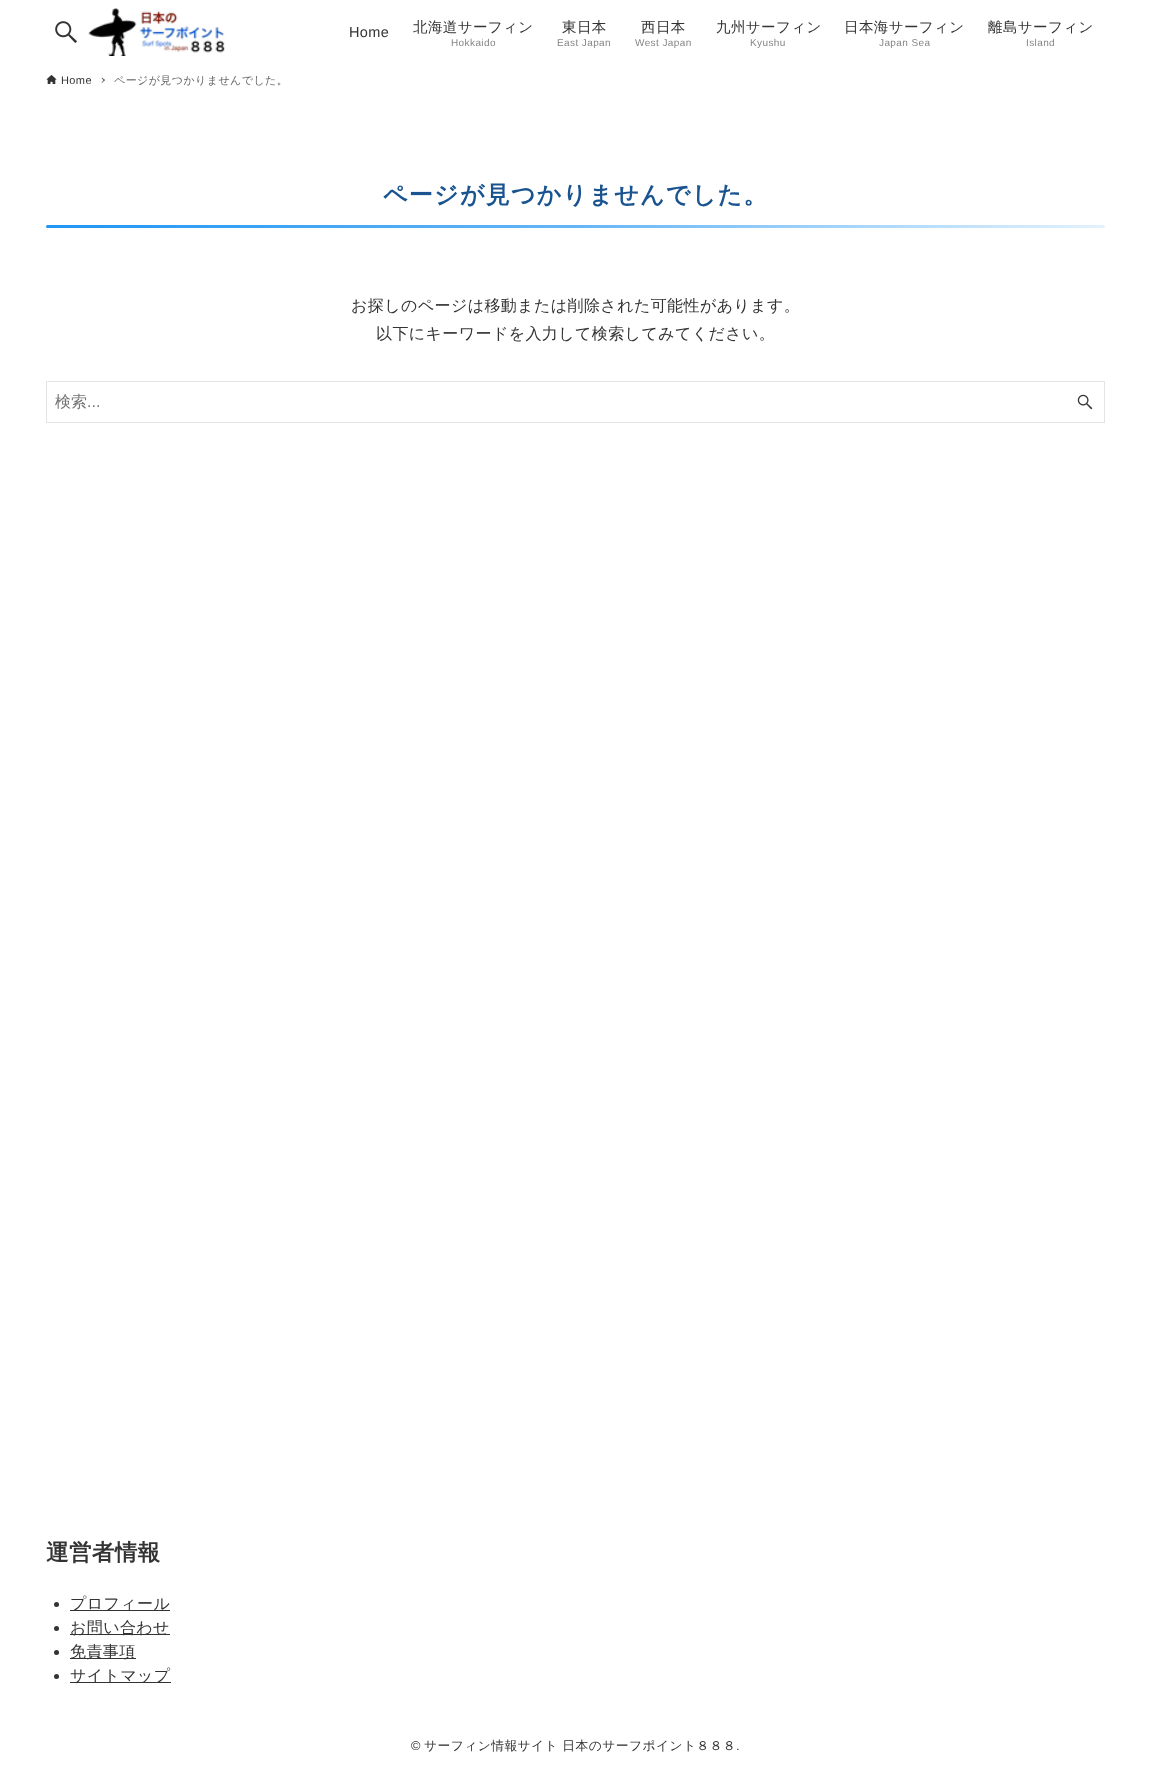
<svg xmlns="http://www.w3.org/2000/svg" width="1151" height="1771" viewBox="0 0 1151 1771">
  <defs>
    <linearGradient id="g1" gradientUnits="userSpaceOnUse" x1="46" y1="227" x2="1105" y2="226"><stop offset="0" stop-color="#2196f3"/><stop offset="0.5" stop-color="#64b5f6"/><stop offset="1" stop-color="#e3f2fd"/></linearGradient>
  </defs>
  <rect width="100%" height="100%" fill="#ffffff"/>
  <image x="55" y="21" width="22" height="22" href="img1.png"/>
  <image x="88" y="8" width="137" height="48" href="img2.png"/>
  <text x="349" y="37" font-family="Liberation Sans" font-size="14.5" letter-spacing="0.4" fill="#333333">Home</text>
  <text x="413" y="32" font-family="WenQuanYi Zen Hei" font-size="14.5" font-weight="500" letter-spacing="0.4" fill="#333333">北海道サーフィン</text>
  <text x="451" y="46" font-family="Liberation Sans" font-size="10" letter-spacing="0.4" fill="#858585">Hokkaido</text>
  <text x="562" y="32" font-family="WenQuanYi Zen Hei" font-size="14.5" font-weight="500" letter-spacing="0.4" fill="#333333">東日本</text>
  <text x="557" y="46" font-family="Liberation Sans" font-size="10" letter-spacing="0.4" fill="#858585">East Japan</text>
  <text x="641" y="32" font-family="WenQuanYi Zen Hei" font-size="14.5" font-weight="500" letter-spacing="0.4" fill="#333333">西日本</text>
  <text x="635" y="46" font-family="Liberation Sans" font-size="10" letter-spacing="0.4" fill="#858585">West Japan</text>
  <text x="716" y="32" font-family="WenQuanYi Zen Hei" font-size="14.5" font-weight="500" letter-spacing="0.4" fill="#333333">九州サーフィン</text>
  <text x="750" y="46" font-family="Liberation Sans" font-size="10" letter-spacing="0.4" fill="#858585">Kyushu</text>
  <text x="844" y="32" font-family="WenQuanYi Zen Hei" font-size="14.5" font-weight="500" letter-spacing="0.4" fill="#333333">日本海サーフィン</text>
  <text x="879" y="46" font-family="Liberation Sans" font-size="10" letter-spacing="0.4" fill="#858585">Japan Sea</text>
  <text x="988" y="32" font-family="WenQuanYi Zen Hei" font-size="14.5" font-weight="500" letter-spacing="0.4" fill="#333333">離島サーフィン</text>
  <text x="1026" y="46" font-family="Liberation Sans" font-size="10" letter-spacing="0.4" fill="#858585">Island</text>
  <image x="46" y="75" width="11" height="9" href="img3.png"/>
  <text x="61" y="84" font-family="Liberation Sans" font-size="11" letter-spacing="0.4" fill="#333333">Home</text>
  <path d="M102 77.5L105 80L104 81L101.5 78Z" fill="#666666"/>
  <path d="M104 79.5L105 80L102 83L101.5 82.5Z" fill="#666666"/>
  <text x="114" y="84" font-family="WenQuanYi Zen Hei" font-size="11" font-weight="500" letter-spacing="0.4" fill="#666666">ページが見つかりませんでした。</text>
  <text x="383" y="203" font-family="WenQuanYi Zen Hei" font-size="24" font-weight="bold" letter-spacing="1.25" fill="#1a5490">ページが見つかりませんでした。</text>
  <rect x="46" y="225" width="1059" height="3" rx="1.5" fill="url(#g1)"/>
  <text x="351" y="311" font-family="WenQuanYi Zen Hei" font-size="16" font-weight="500" letter-spacing="0.4" fill="#333333">お探しのページは移動または削除された可能性があります。</text>
  <text x="376" y="339" font-family="WenQuanYi Zen Hei" font-size="16" font-weight="500" letter-spacing="0.4" fill="#333333">以下にキーワードを入力して検索してみてください。</text>
  <rect x="46.5" y="381.5" width="1058" height="41" fill="none" stroke="#e4e4e4"/>
  <text x="55" y="407" font-family="WenQuanYi Zen Hei" font-size="16" font-weight="500" fill="#757575">検索</text>
  <text x="87" y="407" font-family="Liberation Sans" font-size="16" fill="#757575">...</text>
  <image x="1077" y="394" width="16" height="16" href="img4.png"/>
  <text x="46" y="1560" font-family="WenQuanYi Zen Hei" font-size="22.5" font-weight="bold" letter-spacing="0.4" fill="#333333">運営者情報</text>
  <circle cx="56.5" cy="1604.5" r="2.5" fill="#333333"/>
  <rect x="70" y="1610" width="100" height="1" fill="#333333"/>
  <text x="70" y="1609" font-family="WenQuanYi Zen Hei" font-size="16" font-weight="500" letter-spacing="0.4" fill="#333333">プロフィール</text>
  <circle cx="56.5" cy="1628.5" r="2.5" fill="#333333"/>
  <rect x="70" y="1634" width="100" height="1" fill="#333333"/>
  <text x="70" y="1633" font-family="WenQuanYi Zen Hei" font-size="16" font-weight="500" letter-spacing="0.4" fill="#333333">お問い合わせ</text>
  <circle cx="56.5" cy="1652.5" r="2.5" fill="#333333"/>
  <rect x="70" y="1658" width="66" height="1" fill="#333333"/>
  <text x="70" y="1657" font-family="WenQuanYi Zen Hei" font-size="16" font-weight="500" letter-spacing="0.4" fill="#333333">免責事項</text>
  <circle cx="56.5" cy="1676.5" r="2.5" fill="#333333"/>
  <rect x="70" y="1682" width="101" height="1" fill="#333333"/>
  <text x="70" y="1681" font-family="WenQuanYi Zen Hei" font-size="16" font-weight="500" letter-spacing="0.4" fill="#333333">サイトマップ</text>
  <text x="411" y="1750" font-family="Liberation Sans" font-size="12.8" letter-spacing="0.4" fill="#333333">©</text>
  <text x="424" y="1750" font-family="WenQuanYi Zen Hei" font-size="12.8" font-weight="500" letter-spacing="0.4" fill="#333333">サーフィン情報サイト 日本のサーフポイント８８８</text>
  <text x="736" y="1750" font-family="Liberation Sans" font-size="12.8" letter-spacing="0.4" fill="#333333">.</text>
</svg>
